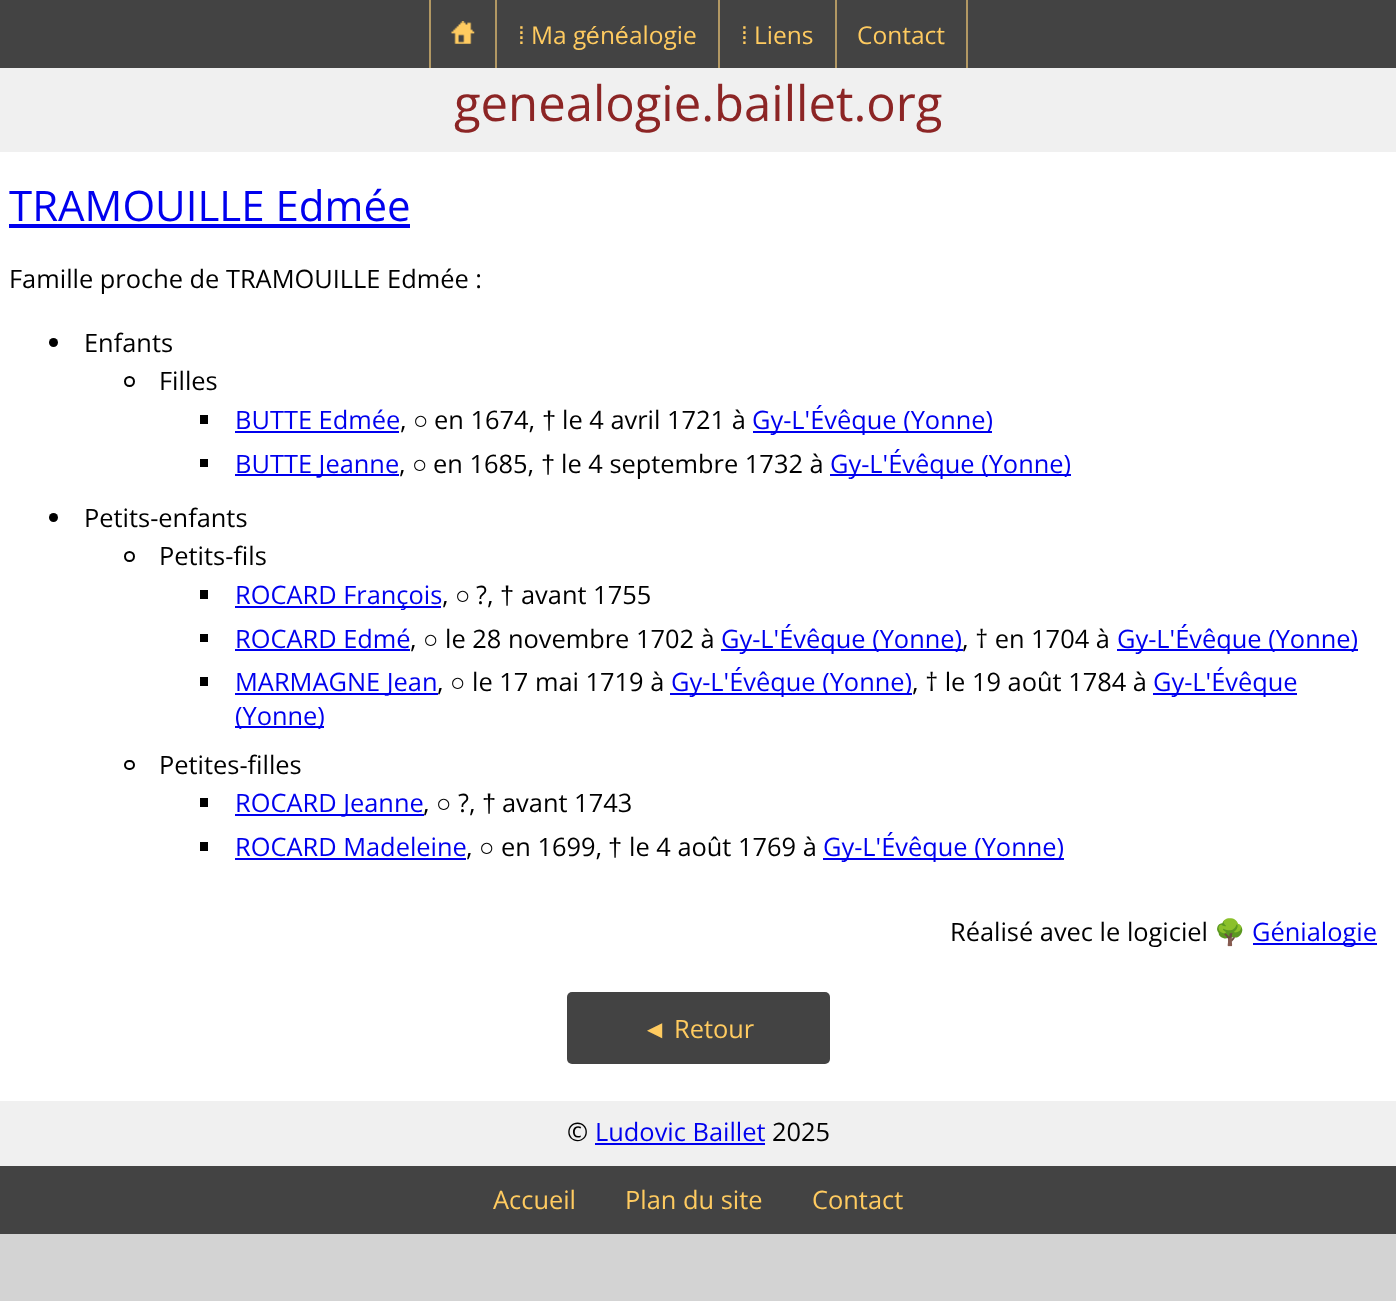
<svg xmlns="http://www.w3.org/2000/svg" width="1396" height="1301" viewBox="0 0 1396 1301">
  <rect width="100%" height="100%" fill="#d3d3d3"/>
  <rect x="0" y="0" width="1396" height="68" fill="#434343"/>
  <rect x="429" y="0" width="2" height="68" fill="#b29863"/>
  <image x="451" y="21" width="24" height="23" href="img1.png"/>
  <rect x="495" y="0" width="2" height="68" fill="#b29863"/>
  <text x="518" y="44" font-family="Liberation Sans" font-size="24.5" fill="#ffcb60">⁞</text>
  <text x="531" y="44" font-family="Open Sans" font-size="24.5" fill="#ffcb60">Ma g</text>
  <text x="586" y="44" font-family="Liberation Sans" font-size="24.5" fill="#ffcb60">é</text>
  <text x="600" y="44" font-family="Open Sans" font-size="24.5" fill="#ffcb60">n</text>
  <text x="615" y="44" font-family="Liberation Sans" font-size="24.5" fill="#ffcb60">é</text>
  <text x="629" y="44" font-family="Open Sans" font-size="24.5" fill="#ffcb60">alogie</text>
  <rect x="718" y="0" width="2" height="68" fill="#b29863"/>
  <text x="741" y="44" font-family="Liberation Sans" font-size="24.5" fill="#ffcb60">⁞</text>
  <text x="754" y="44" font-family="Open Sans" font-size="24.5" fill="#ffcb60">Liens</text>
  <rect x="966" y="0" width="2" height="68" fill="#b29863"/>
  <rect x="835" y="0" width="2" height="68" fill="#b29863"/>
  <text x="857" y="44" font-family="Open Sans" font-size="24.5" fill="#ffcb60">Contact</text>
  <rect x="0" y="68" width="1396" height="84" fill="#f0f0f0"/>
  <text x="454" y="121" font-family="Open Sans" font-size="49" fill="#8c2525">genealogie.baillet.org</text>
  <rect x="0" y="152" width="1396" height="949" fill="#ffffff"/>
  <text x="9" y="221" font-family="Open Sans" font-size="42" fill="#0000ee">TRAMOUILLE Edmée</text>
  <rect x="9" y="224" width="401" height="4" fill="#0000ee"/>
  <text x="9" y="288" font-family="Open Sans" font-size="25.4" fill="#000000">Famille proche de TRAMOUILLE Edmée :</text>
  <circle cx="53.5" cy="342.5" r="4.5" fill="#000000"/>
  <text x="84" y="352" font-family="Open Sans" font-size="25.4" fill="#000000">Enfants</text>
  <circle cx="129.5" cy="381.5" r="4.5" fill="none" stroke="#000000" stroke-width="2"/>
  <text x="159" y="390" font-family="Open Sans" font-size="25.4" fill="#000000">Filles</text>
  <rect x="200" y="415" width="8" height="9" fill="#000000"/>
  <text x="235" y="429" font-family="Open Sans" font-size="25.4" fill="#0000ee">BUTTE Edmée</text>
  <rect x="235" y="431" width="164" height="2" fill="#0000ee"/>
  <text x="413" y="429" font-family="Liberation Sans" font-size="25.4" fill="#000000">○</text>
  <text x="434" y="429" font-family="Open Sans" font-size="25.4" fill="#000000">en 1674,</text>
  <text x="542" y="429" font-family="Liberation Sans" font-size="25.4" fill="#000000">†</text>
  <text x="562" y="429" font-family="Open Sans" font-size="25.4" fill="#000000">le 4 avril 1721 à</text>
  <rect x="753" y="431" width="239" height="2" fill="#0000ee"/>
  <text x="752" y="429" font-family="Open Sans" font-size="25.4" fill="#0000ee">Gy-L'Évêque (Yonne)</text>
  <text x="400" y="429" font-family="Open Sans" font-size="25.4" fill="#000000">,</text>
  <rect x="200" y="459" width="8" height="8" fill="#000000"/>
  <rect x="235" y="474" width="164" height="2" fill="#0000ee"/>
  <text x="235" y="473" font-family="Open Sans" font-size="25.4" fill="#0000ee">BUTTE Jeanne</text>
  <text x="412" y="473" font-family="Liberation Sans" font-size="25.4" fill="#000000">○</text>
  <text x="433" y="473" font-family="Open Sans" font-size="25.4" fill="#000000">en 1685,</text>
  <text x="541" y="473" font-family="Liberation Sans" font-size="25.4" fill="#000000">†</text>
  <text x="561" y="473" font-family="Open Sans" font-size="25.4" fill="#000000">le 4 septembre 1732 à</text>
  <rect x="830" y="474" width="241" height="2" fill="#0000ee"/>
  <text x="830" y="473" font-family="Open Sans" font-size="25.4" fill="#0000ee">Gy-L'Évêque (Yonne)</text>
  <text x="399" y="473" font-family="Open Sans" font-size="25.4" fill="#000000">,</text>
  <circle cx="53.5" cy="517.5" r="4.5" fill="#000000"/>
  <text x="84" y="527" font-family="Open Sans" font-size="25.4" fill="#000000">Petits-enfants</text>
  <circle cx="129.5" cy="556.5" r="4.5" fill="none" stroke="#000000" stroke-width="2"/>
  <text x="159" y="565" font-family="Open Sans" font-size="25.4" fill="#000000">Petits-fils</text>
  <rect x="200" y="590" width="8" height="9" fill="#000000"/>
  <rect x="235" y="606" width="206" height="2" fill="#0000ee"/>
  <text x="235" y="604" font-family="Open Sans" font-size="25.4" fill="#0000ee">ROCARD François</text>
  <text x="455" y="604" font-family="Liberation Sans" font-size="25.4" fill="#000000">○</text>
  <text x="476" y="604" font-family="Open Sans" font-size="25.4" fill="#000000">?,</text>
  <text x="500" y="604" font-family="Liberation Sans" font-size="25.4" fill="#000000">†</text>
  <text x="521" y="604" font-family="Open Sans" font-size="25.4" fill="#000000">avant 1755</text>
  <text x="442" y="604" font-family="Open Sans" font-size="25.4" fill="#000000">,</text>
  <rect x="200" y="634" width="8" height="8" fill="#000000"/>
  <text x="235" y="648" font-family="Open Sans" font-size="25.4" fill="#0000ee">ROCARD Edmé</text>
  <rect x="235" y="649" width="175" height="2" fill="#0000ee"/>
  <text x="423" y="648" font-family="Liberation Sans" font-size="25.4" fill="#000000">○</text>
  <text x="445" y="648" font-family="Open Sans" font-size="25.4" fill="#000000">le 28 novembre 1702 à</text>
  <rect x="721" y="649" width="242" height="2" fill="#0000ee"/>
  <text x="721" y="648" font-family="Open Sans" font-size="25.4" fill="#0000ee">Gy-L'Évêque (Yonne)</text>
  <text x="962" y="648" font-family="Open Sans" font-size="25.4" fill="#000000">, † en 1704 à</text>
  <rect x="1117" y="649" width="241" height="2" fill="#0000ee"/>
  <text x="1117" y="648" font-family="Open Sans" font-size="25.4" fill="#0000ee">Gy-L'Évêque (Yonne)</text>
  <text x="410" y="648" font-family="Open Sans" font-size="25.4" fill="#000000">,</text>
  <rect x="200" y="677" width="8" height="9" fill="#000000"/>
  <rect x="235" y="693" width="203" height="2" fill="#0000ee"/>
  <text x="235" y="691" font-family="Open Sans" font-size="25.4" fill="#0000ee">MARMAGNE Jean</text>
  <text x="450" y="691" font-family="Liberation Sans" font-size="25.4" fill="#000000">○</text>
  <text x="472" y="691" font-family="Open Sans" font-size="25.4" fill="#000000">le 17 mai 1719 à</text>
  <rect x="670" y="693" width="242" height="2" fill="#0000ee"/>
  <text x="671" y="691" font-family="Open Sans" font-size="25.4" fill="#0000ee">Gy-L'Évêque (Yonne)</text>
  <text x="912" y="691" font-family="Open Sans" font-size="25.4" fill="#000000">, † le 19 août 1784 à</text>
  <rect x="1153" y="693" width="144" height="2" fill="#0000ee"/>
  <text x="1153" y="691" font-family="Open Sans" font-size="25.4" fill="#0000ee">Gy-L'Évêque</text>
  <text x="437" y="691" font-family="Open Sans" font-size="25.4" fill="#000000">,</text>
  <rect x="235" y="726" width="89" height="2" fill="#0000ee"/>
  <text x="235" y="725" font-family="Open Sans" font-size="25.4" fill="#0000ee">(Yonne)</text>
  <rect x="125" y="761" width="9" height="8" rx="4" fill="none" stroke="#000000" stroke-width="2"/>
  <text x="159" y="774" font-family="Open Sans" font-size="25.4" fill="#000000">Petites-filles</text>
  <rect x="200" y="798" width="8" height="9" fill="#000000"/>
  <rect x="235" y="814" width="189" height="2" fill="#0000ee"/>
  <text x="235" y="812" font-family="Open Sans" font-size="25.4" fill="#0000ee">ROCARD Jeanne</text>
  <text x="436" y="812" font-family="Liberation Sans" font-size="25.4" fill="#000000">○</text>
  <text x="458" y="812" font-family="Open Sans" font-size="25.4" fill="#000000">?,</text>
  <text x="482" y="812" font-family="Liberation Sans" font-size="25.4" fill="#000000">†</text>
  <text x="502" y="812" font-family="Open Sans" font-size="25.4" fill="#000000">avant 1743</text>
  <text x="423" y="812" font-family="Open Sans" font-size="25.4" fill="#000000">,</text>
  <rect x="200" y="842" width="8" height="9" fill="#000000"/>
  <text x="235" y="856" font-family="Open Sans" font-size="25.4" fill="#0000ee">ROCARD Madeleine</text>
  <rect x="235" y="858" width="231" height="2" fill="#0000ee"/>
  <text x="479" y="856" font-family="Liberation Sans" font-size="25.4" fill="#000000">○</text>
  <text x="501" y="856" font-family="Open Sans" font-size="25.4" fill="#000000">en 1699,</text>
  <text x="608" y="856" font-family="Liberation Sans" font-size="25.4" fill="#000000">†</text>
  <text x="629" y="856" font-family="Open Sans" font-size="25.4" fill="#000000">le 4 août 1769 à</text>
  <rect x="823" y="858" width="241" height="2" fill="#0000ee"/>
  <text x="823" y="856" font-family="Open Sans" font-size="25.4" fill="#0000ee">Gy-L'Évêque (Yonne)</text>
  <text x="466" y="856" font-family="Open Sans" font-size="25.4" fill="#000000">,</text>
  <text x="950" y="941" font-family="Open Sans" font-size="25.4" fill="#000000">Réalisé avec le logiciel</text>
  <text x="1214" y="941" font-family="Noto Color Emoji" font-size="25.4" fill="#000000">🌳</text>
  <rect x="1253" y="943" width="124" height="2" fill="#0000ee"/>
  <text x="1252" y="941" font-family="Open Sans" font-size="25.4" fill="#0000ee">Génialogie</text>
  <rect x="567" y="992" width="263" height="72" rx="5" fill="#434343"/>
  <text x="642" y="1038" font-family="Liberation Sans" font-size="25.4" fill="#ffcb60">◄</text>
  <text x="674" y="1038" font-family="Open Sans" font-size="25.4" fill="#ffcb60">Retour</text>
  <rect x="0" y="1101" width="1396" height="65" fill="#f0f0f0"/>
  <text x="567" y="1141" font-family="Open Sans" font-size="25.4" fill="#000000">©</text>
  <text x="595" y="1141" font-family="Open Sans" font-size="25.4" fill="#0000ee">Ludovic Baillet</text>
  <rect x="595" y="1143" width="170" height="2" fill="#0000ee"/>
  <text x="772" y="1141" font-family="Open Sans" font-size="25.4" fill="#000000">2025</text>
  <rect x="0" y="1166" width="1396" height="68" fill="#434343"/>
  <text x="493" y="1209" font-family="Open Sans" font-size="25.4" fill="#ffcb60">Accueil</text>
  <text x="625" y="1209" font-family="Open Sans" font-size="25.4" fill="#ffcb60">Plan du site</text>
  <text x="812" y="1209" font-family="Open Sans" font-size="25.4" fill="#ffcb60">Contact</text>
</svg>
